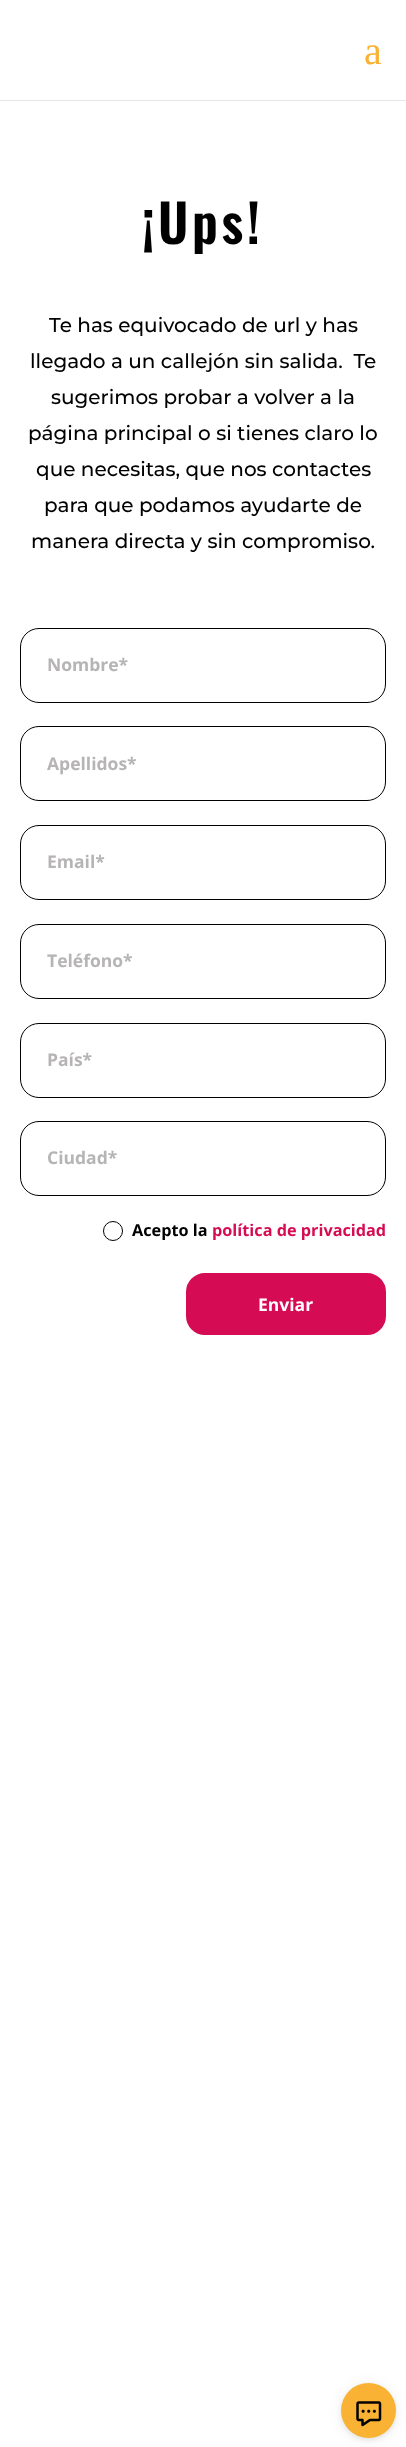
<svg xmlns="http://www.w3.org/2000/svg" width="406" height="2447" viewBox="0 0 406 2447">
  <defs>
    <filter id="blur1" x="-50%" y="-200%" width="200%" height="500%"><feGaussianBlur stdDeviation="2.5"/></filter>
    <filter id="blur2" x="-50%" y="-200%" width="200%" height="500%"><feGaussianBlur stdDeviation="7.5"/></filter>
  </defs>
  <rect width="100%" height="100%" fill="#ffffff"/>
  <rect x="0" y="100" width="406" height="1" fill="#e6e6e6"/>
  <text x="364" y="64" font-family="Liberation Serif" font-size="40" fill="#f9b233">a</text>
  <text x="142" y="244" font-family="Oswald" font-size="52.5" font-weight="600" letter-spacing="3.75" fill="#000000">¡Ups!</text>
  <text x="49" y="332" font-family="Montserrat" font-size="20" font-weight="100" fill="#000000">Te has equivocado de url y has</text>
  <text x="30" y="368" font-family="Montserrat" font-size="20" font-weight="100" fill="#000000" xml:space="preserve">llegado a un callejón sin salida.  Te</text>
  <text x="51" y="404" font-family="Montserrat" font-size="20" font-weight="100" fill="#000000">sugerimos probar a volver a la</text>
  <text x="28" y="440" font-family="Montserrat" font-size="20" font-weight="100" fill="#000000">página principal o si tienes claro lo</text>
  <text x="36" y="476" font-family="Montserrat" font-size="20" font-weight="100" fill="#000000">que necesitas, que nos contactes</text>
  <text x="44" y="512" font-family="Montserrat" font-size="20" font-weight="100" fill="#000000">para que podamos ayudarte de</text>
  <text x="31" y="548" font-family="Montserrat" font-size="20" font-weight="100" fill="#000000">manera directa y sin compromiso.</text>
  <rect x="20.5" y="628.5" width="365" height="74" rx="18.5" fill="none" stroke="#000000"/>
  <text x="47" y="671" font-family="Open Sans" font-size="17.5" font-weight="bold" fill="#b6b4b4">Nombre*</text>
  <rect x="20.5" y="726.5" width="365" height="74" rx="18.5" fill="none" stroke="#000000"/>
  <text x="47" y="770" font-family="Open Sans" font-size="17.5" font-weight="bold" fill="#b6b4b4">Apellidos*</text>
  <rect x="20.5" y="825.5" width="365" height="74" rx="18.5" fill="none" stroke="#000000"/>
  <text x="47" y="868" font-family="Open Sans" font-size="17.5" font-weight="bold" fill="#b6b4b4">Email*</text>
  <rect x="20.5" y="924.5" width="365" height="74" rx="18.5" fill="none" stroke="#000000"/>
  <text x="47" y="967" font-family="Open Sans" font-size="17.5" font-weight="bold" fill="#b6b4b4">Teléfono*</text>
  <rect x="20.5" y="1023.5" width="365" height="74" rx="18.5" fill="none" stroke="#000000"/>
  <text x="47" y="1066" font-family="Open Sans" font-size="17.5" font-weight="bold" fill="#b6b4b4">País*</text>
  <rect x="20.5" y="1121.5" width="365" height="74" rx="18.5" fill="none" stroke="#000000"/>
  <text x="47" y="1164" font-family="Open Sans" font-size="17.5" font-weight="bold" fill="#b6b4b4">Ciudad*</text>
  <circle cx="113" cy="1231" r="9.5" fill="none" stroke="#000000"/>
  <text x="132" y="1236" font-family="Open Sans" font-size="16.25" font-weight="bold" fill="#000000">Acepto la</text>
  <text x="212" y="1236" font-family="Open Sans" font-size="16.25" font-weight="bold" fill="#d60b52">política de privacidad</text>
  <rect x="188" y="1275" width="196" height="58" rx="17" fill="#d50b53" stroke="#d50b53" stroke-width="4"/>
  <text x="258" y="1311" font-family="Open Sans" font-size="17.5" font-weight="bold" fill="#ffffff">Enviar</text>
  <rect x="341" y="2385" width="55" height="55" rx="27.5" fill="#000000" fill-opacity="0.08" filter="url(#blur1)"/>
  <rect x="341" y="2385" width="55" height="55" rx="27.5" fill="#000000" fill-opacity="0.06" filter="url(#blur2)"/>
  <circle cx="368.5" cy="2410.5" r="27.5" fill="#f9b233"/>
  <image x="356" y="2401" width="26" height="26" href="img1.png"/>
</svg>
